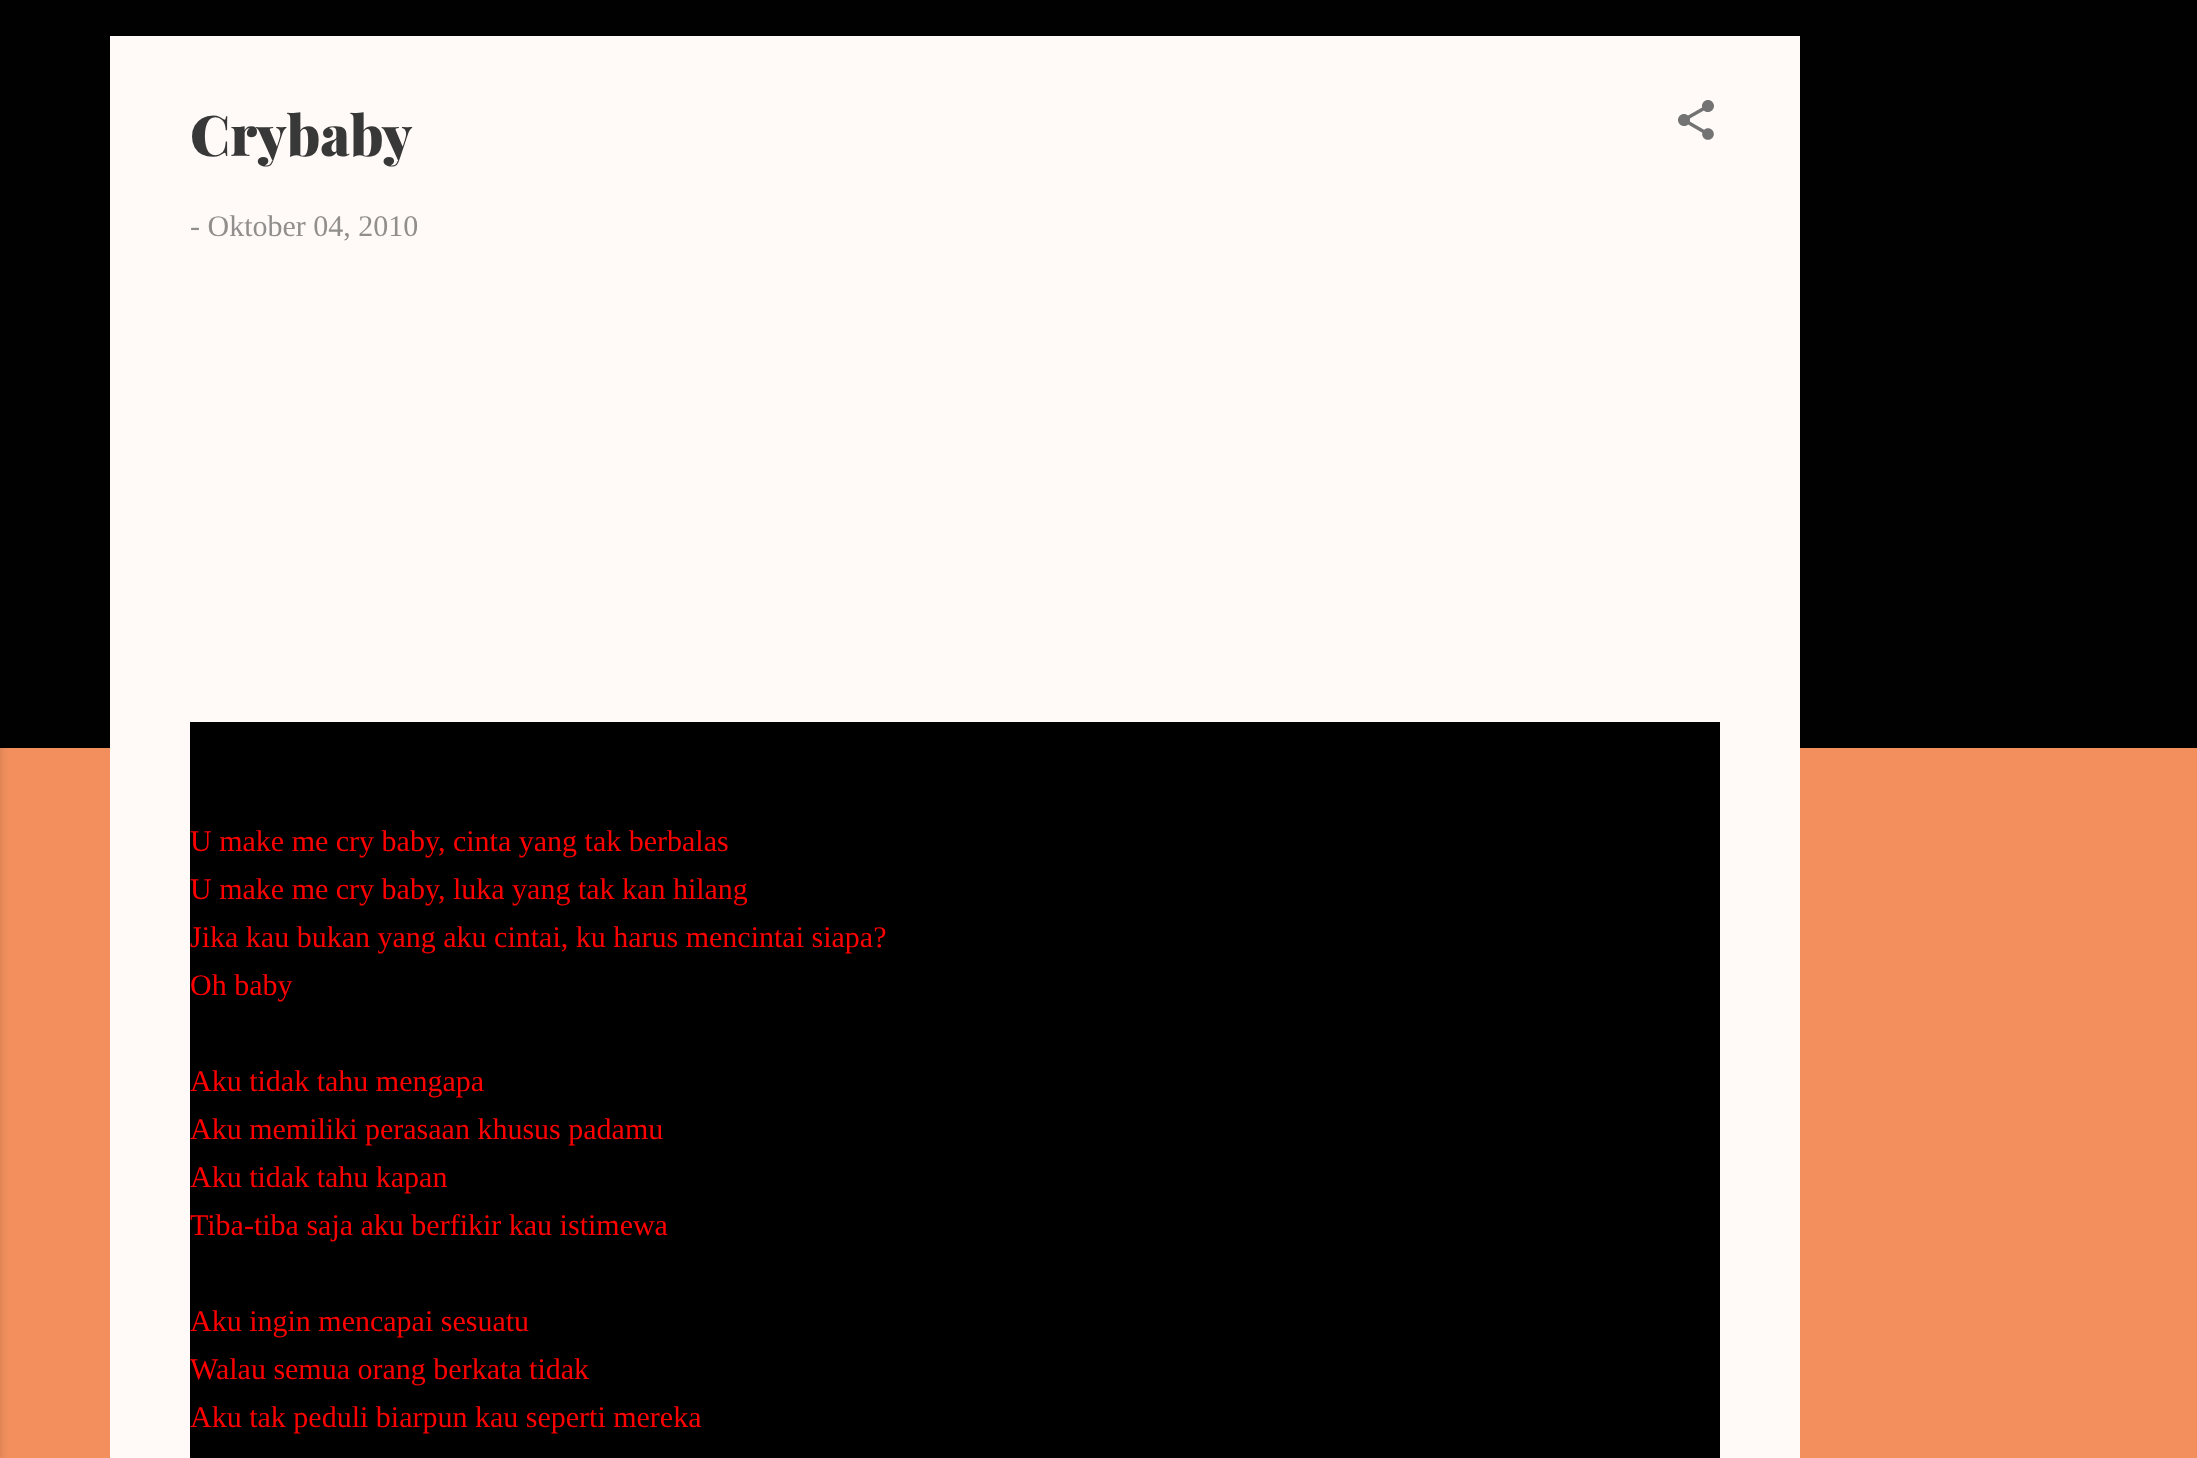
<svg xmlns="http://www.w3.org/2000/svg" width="2197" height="1458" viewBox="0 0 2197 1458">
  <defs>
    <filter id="blur1" x="-50%" y="-200%" width="200%" height="500%"><feGaussianBlur stdDeviation="3"/></filter>
  </defs>
  <rect width="100%" height="100%" fill="#f28f5d"/>
  <rect x="0" y="0" width="2197" height="748" fill="#010101"/>
  <rect x="-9" y="2" width="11" height="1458" fill="#000000" fill-opacity="0.1" filter="url(#blur1)"/>
  <rect x="110" y="36" width="1690" height="1422" fill="#fffaf7"/>
  <text x="190" y="156" font-family="Playfair Display" font-size="56" font-weight="900" fill="#383838">Crybaby</text>
  <image x="1678" y="100" width="36" height="40" href="img1.png"/>
  <text x="190" y="236" font-family="Liberation Serif" font-size="30" fill="#918f8e">- Oktober 04, 2010</text>
  <rect x="190" y="722" width="1530" height="736" fill="#000000"/>
  <text x="190" y="851" font-family="Liberation Serif" font-size="30" fill="#ff0000">U make me cry baby, cinta yang tak berbalas</text>
  <text x="190" y="899" font-family="Liberation Serif" font-size="30" fill="#ff0000">U make me cry baby, luka yang tak kan hilang</text>
  <text x="190" y="947" font-family="Liberation Serif" font-size="30" fill="#ff0000">Jika kau bukan yang aku cintai, ku harus mencintai siapa?</text>
  <text x="190" y="995" font-family="Liberation Serif" font-size="30" fill="#ff0000">Oh baby</text>
  <text x="190" y="1091" font-family="Liberation Serif" font-size="30" fill="#ff0000">Aku tidak tahu mengapa</text>
  <text x="190" y="1139" font-family="Liberation Serif" font-size="30" fill="#ff0000">Aku memiliki perasaan khusus padamu</text>
  <text x="190" y="1187" font-family="Liberation Serif" font-size="30" fill="#ff0000">Aku tidak tahu kapan</text>
  <text x="190" y="1235" font-family="Liberation Serif" font-size="30" fill="#ff0000">Tiba-tiba saja aku berfikir kau istimewa</text>
  <text x="190" y="1331" font-family="Liberation Serif" font-size="30" fill="#ff0000">Aku ingin mencapai sesuatu</text>
  <text x="190" y="1379" font-family="Liberation Serif" font-size="30" fill="#ff0000">Walau semua orang berkata tidak</text>
  <text x="190" y="1427" font-family="Liberation Serif" font-size="30" fill="#ff0000">Aku tak peduli biarpun kau seperti mereka</text>
</svg>
